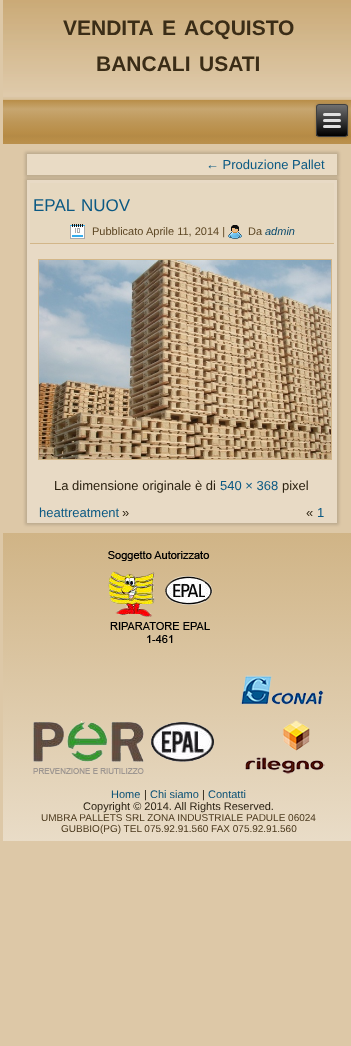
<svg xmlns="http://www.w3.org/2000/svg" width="351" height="1046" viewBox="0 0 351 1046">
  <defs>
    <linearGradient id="g1" gradientUnits="userSpaceOnUse" x1="179" y1="100" x2="179" y2="145"><stop offset="0" stop-color="#b88d47"/><stop offset="0.2" stop-color="#c7a670"/><stop offset="0.5" stop-color="#bd9656"/><stop offset="0.74" stop-color="#b88d47"/><stop offset="0.8" stop-color="#b48a46"/><stop offset="0.87" stop-color="#b88d47"/><stop offset="1" stop-color="#ba914f"/></linearGradient>
    <filter id="blur1" x="-50%" y="-200%" width="200%" height="500%"><feGaussianBlur stdDeviation="1.5"/></filter>
    <clipPath id="clip1"><rect x="316" y="104" width="32" height="33" rx="3"/></clipPath>
    <linearGradient id="g2" gradientUnits="userSpaceOnUse" x1="332" y1="105" x2="332" y2="136"><stop offset="0" stop-color="#707070"/><stop offset="1" stop-color="#000000"/></linearGradient>
    <linearGradient id="g3" gradientUnits="userSpaceOnUse" x1="178" y1="532" x2="179" y2="841"><stop offset="0" stop-color="#d0b486"/><stop offset="1" stop-color="#e9dcc7"/></linearGradient>
  </defs>
  <rect width="100%" height="100%" fill="#ddc8a7"/>
  <image x="3" y="0" width="348" height="100" href="img1.png"/>
  <text x="63" y="35" font-family="Liberation Sans" font-size="21" font-weight="bold" fill="#3b2d17">VENDITA</text>
  <text x="162" y="35" font-family="Liberation Sans" font-size="21" font-weight="bold" fill="#3b2d17">E</text>
  <text x="184" y="35" font-family="Liberation Sans" font-size="21" font-weight="bold" fill="#3b2d17">ACQUISTO</text>
  <text x="96" y="71" font-family="Liberation Sans" font-size="21" font-weight="bold" fill="#3b2d17">BANCALI</text>
  <text x="199" y="71" font-family="Liberation Sans" font-size="21" font-weight="bold" fill="#3b2d17">USATI</text>
  <rect x="3" y="100" width="348" height="44" fill="url(#g1)"/>
  <rect x="316" y="104" width="32" height="33" rx="3" fill="#000000" fill-opacity="0.2" filter="url(#blur1)"/>
  <g clip-path="url(#clip1)">
    <rect x="316" y="105" width="32" height="31" fill="url(#g2)"/>
  </g>
  <rect x="316.5" y="104.5" width="31" height="32" rx="2.5" fill="none" stroke="#404040"/>
  <rect x="323" y="113" width="18" height="3" rx="1.5" fill="#e0e0e0"/>
  <rect x="323" y="119" width="18" height="3" rx="1.5" fill="#e0e0e0"/>
  <rect x="323" y="125" width="18" height="3" rx="1.5" fill="#e0e0e0"/>
  <rect x="25" y="152" width="314" height="25" fill="#000000" fill-opacity="0.15" filter="url(#blur1)"/>
  <rect x="27" y="154" width="310" height="21" fill="#e9dbc5"/>
  <text x="206" y="169" font-family="Liberation Sans" font-size="13" fill="#0b5983">← Produzione Pallet</text>
  <rect x="25" y="178" width="314" height="347" fill="#000000" fill-opacity="0.15" filter="url(#blur1)"/>
  <rect x="27" y="180" width="310" height="343" fill="#e8dac5"/>
  <rect x="30" y="183" width="304" height="60" fill="#e6d8c0"/>
  <rect x="30" y="243" width="304" height="1" fill="#d2b689"/>
  <text x="33" y="211" font-family="Liberation Sans" font-size="17" fill="#0b5983">EPAL</text>
  <text x="81" y="211" font-family="Liberation Sans" font-size="17" fill="#0b5983">NUOV</text>
  <image x="70" y="224" width="15" height="15" href="img2.png"/>
  <text x="92" y="235" font-family="Liberation Sans" font-size="11" fill="#5c4623">Pubblicato</text>
  <text x="146" y="235" font-family="Liberation Sans" font-size="11" fill="#5c4623">Aprile 11, 2014 |</text>
  <image x="228" y="225" width="14" height="14" href="img3.png"/>
  <text x="248" y="235" font-family="Liberation Sans" font-size="11" fill="#5c4623">Da</text>
  <text x="265" y="235" font-family="Liberation Sans" font-size="11" font-style="italic" fill="#09496c">admin</text>
  <rect x="38.5" y="259.5" width="293" height="200" fill="none" stroke="#d2b689"/>
  <image x="39" y="260" width="292" height="199" href="img4.png"/>
  <text x="54" y="490" font-family="Liberation Sans" font-size="13" fill="#2c2211">La dimensione originale è di</text>
  <text x="220" y="490" font-family="Liberation Sans" font-size="13" fill="#0b5983">540 × 368</text>
  <text x="282" y="490" font-family="Liberation Sans" font-size="13" fill="#2c2211">pixel</text>
  <text x="39" y="517" font-family="Liberation Sans" font-size="13" fill="#0b5983">heattreatment</text>
  <text x="122" y="517" font-family="Liberation Sans" font-size="13" fill="#2c2211">»</text>
  <text x="306" y="517" font-family="Liberation Sans" font-size="13" fill="#2c2211">«</text>
  <text x="317" y="517" font-family="Liberation Sans" font-size="13" fill="#0b5983">1</text>
  <rect x="3" y="533" width="348" height="308" fill="url(#g3)"/>
  <image x="108" y="551" width="105" height="92" href="img5.png"/>
  <image x="33" y="721" width="181" height="53" href="img6.png"/>
  <image x="240" y="675" width="85" height="99" href="img7.png"/>
  <text x="111" y="798" font-family="Liberation Sans" font-size="11" fill="#0a5075">Home</text>
  <text x="144" y="798" font-family="Liberation Sans" font-size="11" fill="#251c0e">|</text>
  <text x="150" y="798" font-family="Liberation Sans" font-size="11" fill="#0a5075">Chi siamo</text>
  <text x="202" y="798" font-family="Liberation Sans" font-size="11" fill="#251c0e">|</text>
  <text x="208" y="798" font-family="Liberation Sans" font-size="11" fill="#0a5075">Contatti</text>
  <text x="83" y="810" font-family="Liberation Sans" font-size="11" fill="#251c0e">Copyright © 2014. All Rights Reserved.</text>
  <text x="41" y="821" font-family="Liberation Sans" font-size="10" fill="#4a381c">UMBRA PALLETS SRL ZONA INDUSTRIALE PADULE 06024</text>
  <text x="61" y="832" font-family="Liberation Sans" font-size="10" fill="#4a381c">GUBBIO(PG) TEL 075.92.91.560 FAX 075.92.91.560</text>
</svg>
